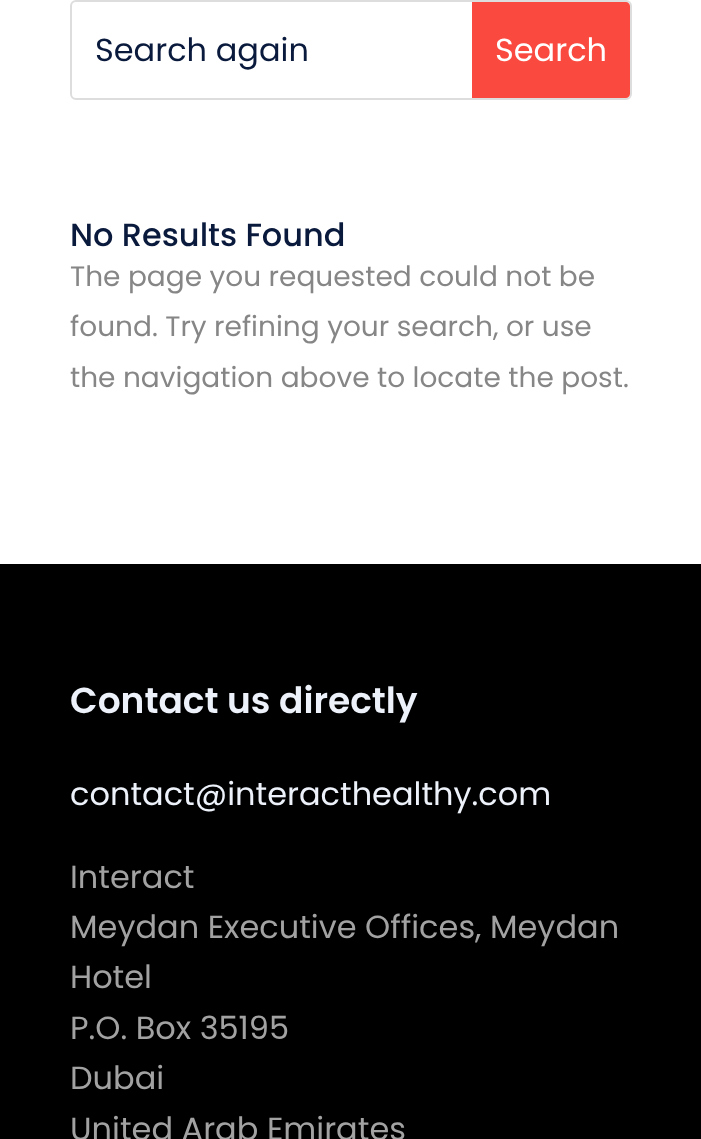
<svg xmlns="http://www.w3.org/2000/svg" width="701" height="1139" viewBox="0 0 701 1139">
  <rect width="100%" height="100%" fill="#ffffff"/>
  <rect x="71" y="1" width="560" height="98" rx="5" fill="none" stroke="#dddddd" stroke-width="2"/>
  <text x="95" y="61" font-family="Poppins" font-size="32" fill="#0a1a3d">Search again</text>
  <path d="M472 2H626C628 2 630 4 630 6V94C630 96 628 98 626 98H472Z" fill="#fa4a40"/>
  <text x="495" y="61" font-family="Poppins" font-size="32" fill="#ffffff">Search</text>
  <text x="70" y="246" font-family="Poppins" font-size="32" font-weight="500" fill="#0a1a3d">No Results Found</text>
  <text x="70" y="286" font-family="Poppins" font-size="28" fill="#868686">The page you requested could not be</text>
  <text x="70" y="336" font-family="Poppins" font-size="28" fill="#868686">found. Try refining your search, or use</text>
  <text x="70" y="387" font-family="Poppins" font-size="28" fill="#868686">the navigation above to locate the post.</text>
  <rect x="0" y="564" width="701" height="575" fill="#000000"/>
  <text x="70" y="713" font-family="Poppins" font-size="36" font-weight="600" fill="#edf2fa">Contact us directly</text>
  <text x="70" y="805" font-family="Poppins" font-size="32" fill="#edf2fa">contact@interacthealthy.com</text>
  <text x="70" y="888" font-family="Poppins" font-size="32" fill="#a2a2a2">Interact</text>
  <text x="70" y="938" font-family="Poppins" font-size="32" fill="#a2a2a2">Meydan Executive Offices, Meydan</text>
  <text x="70" y="988" font-family="Poppins" font-size="32" fill="#a2a2a2">Hotel</text>
  <text x="70" y="1039" font-family="Poppins" font-size="32" fill="#a2a2a2">P.O. Box 35195</text>
  <text x="70" y="1089" font-family="Poppins" font-size="32" fill="#a2a2a2">Dubai</text>
  <text x="70" y="1140" font-family="Poppins" font-size="32" fill="#a2a2a2">United Arab Emirates</text>
</svg>
